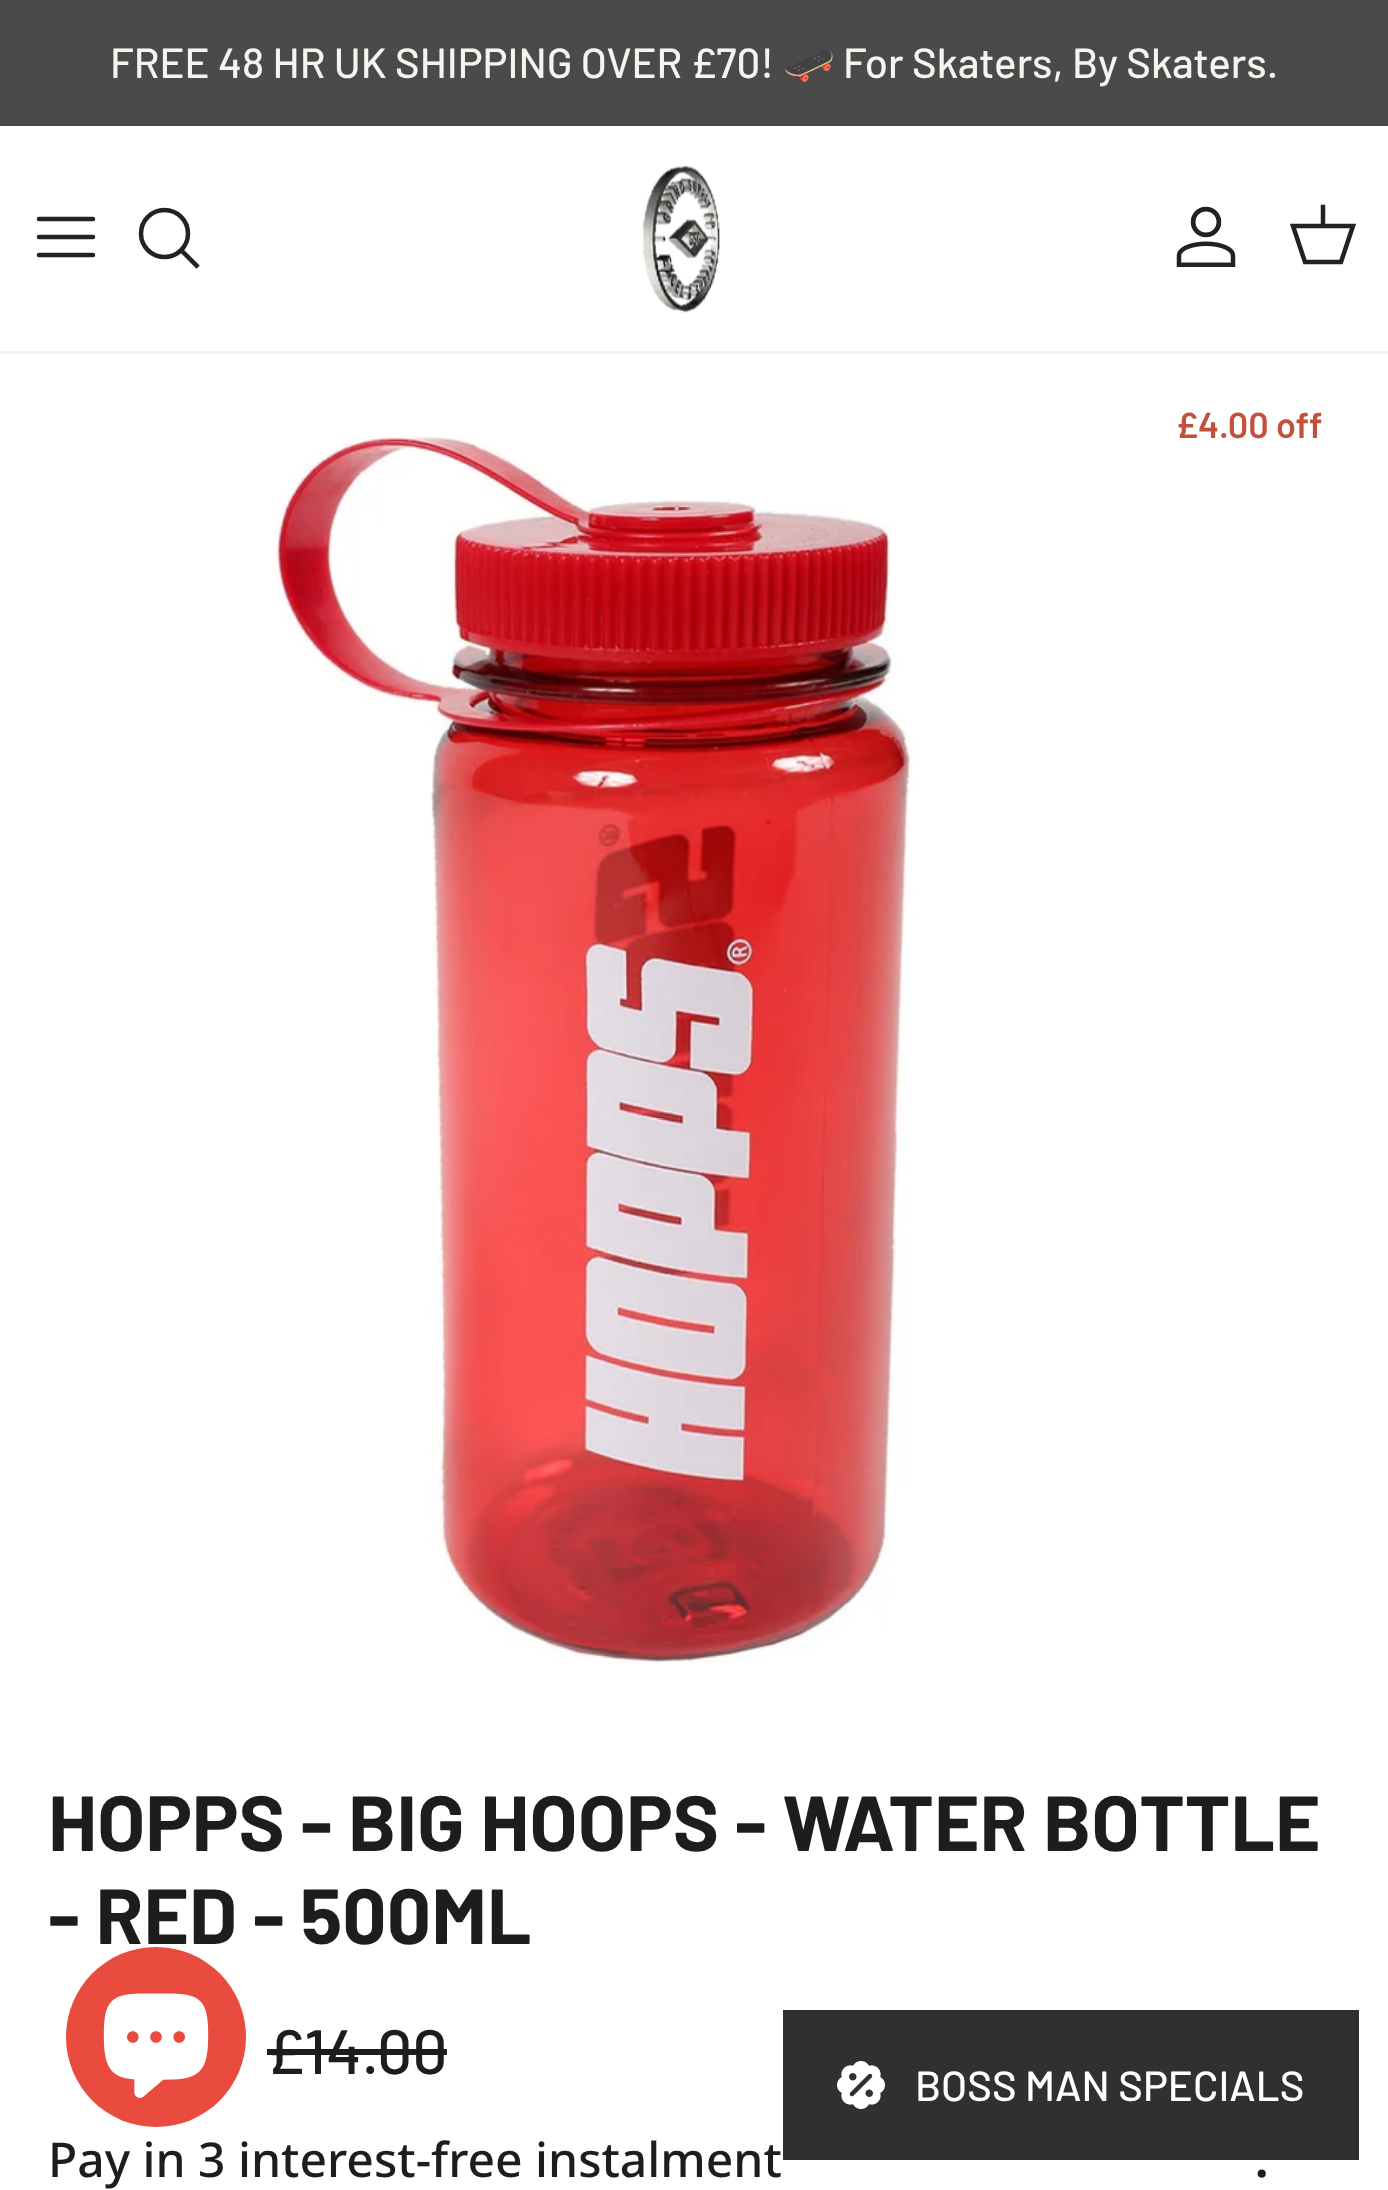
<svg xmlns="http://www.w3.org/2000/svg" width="1388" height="2190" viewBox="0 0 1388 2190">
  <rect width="100%" height="100%" fill="#ffffff"/>
  <rect x="0" y="0" width="1388" height="126" fill="#4a4a4a"/>
  <text x="110" y="78" font-family="Barlow" font-size="42" font-weight="500" fill="#f6f4ef">FREE 48 HR UK SHIPPING OVER £70!</text>
  <text x="783" y="78" font-family="Noto Color Emoji" font-size="42" fill="#f6f4ef">🛹</text>
  <text x="843" y="78" font-family="Barlow" font-size="42" font-weight="500" fill="#f6f4ef">For Skaters, By Skaters.</text>
  <rect x="0" y="351" width="1388" height="3" fill="#f6f4ef"/>
  <path d="M39 237H93M39 219H93M39 255H93" fill="none" stroke="#202223" stroke-width="4.5" stroke-linecap="round" stroke-linejoin="round"/>
  <circle cx="164.5" cy="233.5" r="23.5" fill="none" stroke="#202223" stroke-width="4.5"/>
  <path d="M183 252L196.5 265.5" fill="none" stroke="#202223" stroke-width="4.5" stroke-linecap="square"/>
  <image x="642" y="165" width="78" height="148" href="img1.png"/>
  <image x="1176" y="206" width="60" height="61" href="img2.png"/>
  <path d="M1293 226H1353L1341 262H1305Z" fill="none" stroke="#202223" stroke-width="4.5"/>
  <path d="M1323 225V207" fill="none" stroke="#202223" stroke-width="4.5" stroke-linecap="square"/>
  <text x="1176" y="438" font-family="Barlow" font-size="36" font-weight="600" fill="#c2503a">£4.00 off</text>
  <image x="276" y="436" width="637" height="1228" href="img3.png"/>
  <text x="48" y="1851" font-family="Barlow" font-size="78" font-weight="bold" fill="#1d1e1c">HOPPS - BIG HOOPS - WATER BOTTLE</text>
  <text x="48" y="1944" font-family="Barlow" font-size="78" font-weight="bold" fill="#1d1e1c">- RED - 500ML</text>
  <text x="266" y="2074" font-family="Barlow" font-size="62.5" font-weight="500" fill="#1d1e1c">£14.00</text>
  <rect x="267" y="2049" width="180" height="6" fill="#1d1e1c"/>
  <text x="48" y="2177" font-family="Noto Sans" font-size="48" font-weight="500" fill="#1d1e1c">Pay in 3 interest-free instalment</text>
  <text x="1255" y="2177" font-family="Noto Sans" font-size="48" font-weight="bold" fill="#1d1e1c">.</text>
  <circle cx="156" cy="2037" r="90" fill="#e94b3f"/>
  <image x="103" y="1993" width="106" height="105" href="img4.png"/>
  <rect x="783" y="2010" width="576" height="150" fill="#312f30"/>
  <image x="837" y="2061" width="48" height="48" href="img5.png"/>
  <text x="915" y="2101" font-family="Barlow" font-size="42" font-weight="500" fill="#ffffff">BOSS MAN SPECIALS</text>
</svg>
